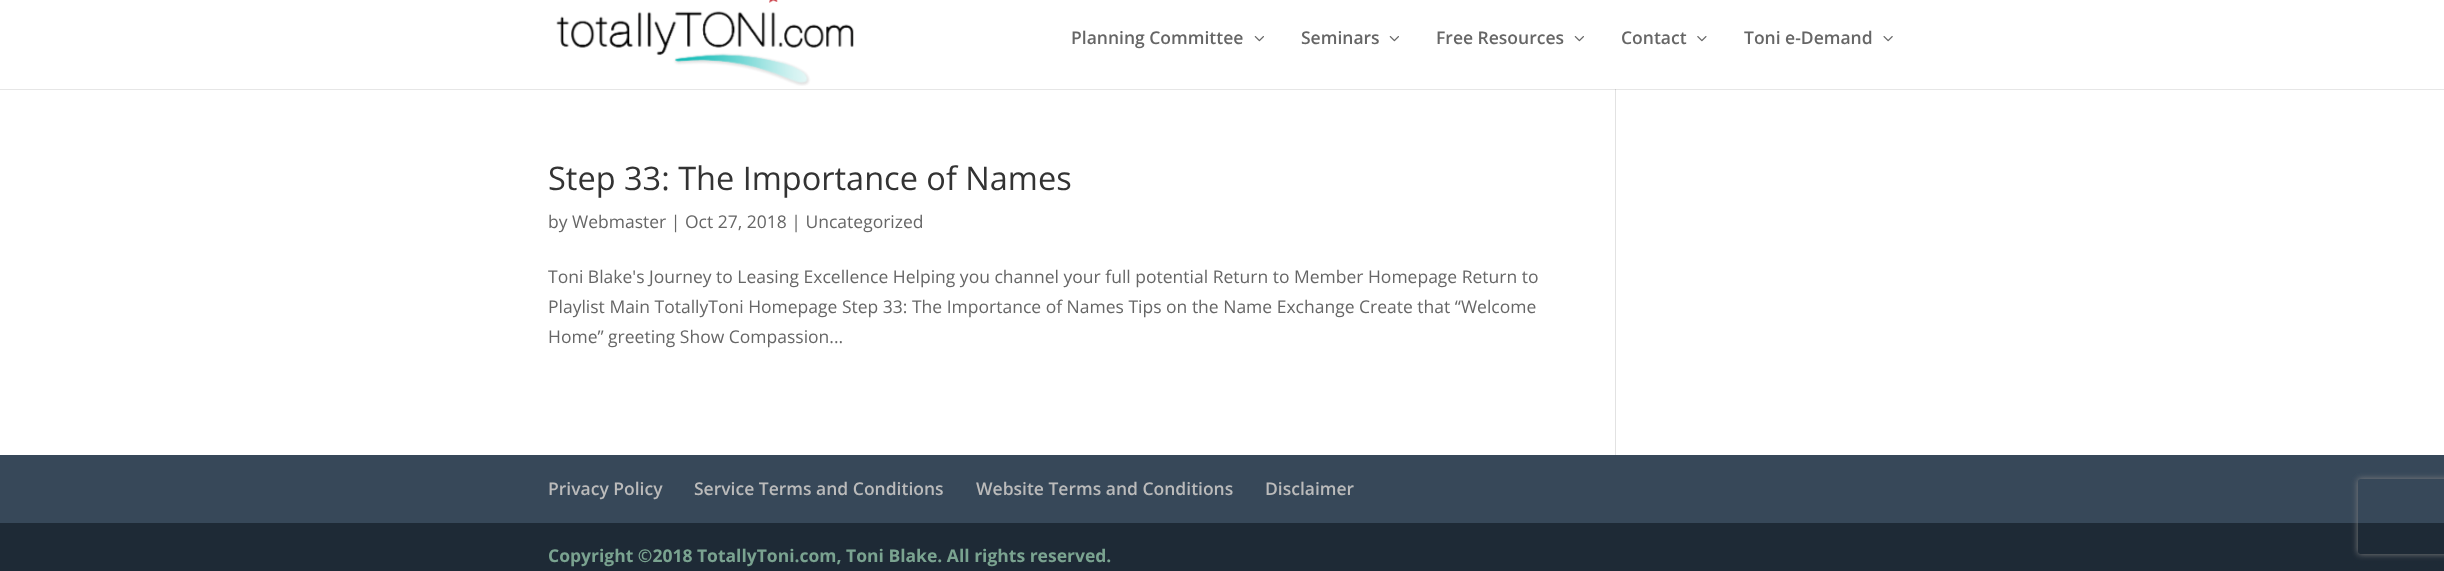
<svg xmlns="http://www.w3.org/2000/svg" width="2444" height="571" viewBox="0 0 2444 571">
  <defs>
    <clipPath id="clip1"><path d="M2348 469H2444V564H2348ZM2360.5 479H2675.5C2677 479 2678 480 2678 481.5V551.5C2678 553 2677 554 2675.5 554H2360.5C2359 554 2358 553 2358 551.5V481.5C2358 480 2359 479 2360.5 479Z" clip-rule="evenodd"/></clipPath>
    <filter id="blur1" x="-50%" y="-200%" width="200%" height="500%"><feGaussianBlur stdDeviation="3"/></filter>
  </defs>
  <rect width="100%" height="100%" fill="#ffffff"/>
  <rect x="0" y="89" width="2444" height="1" fill="#e6e6e6"/>
  <image x="556" y="0" width="298" height="86" href="img1.png"/>
  <text x="1071" y="44" font-family="Open Sans" font-size="17.5" font-weight="600" fill="#666666">Planning Committee</text>
  <image x="1254" y="36" width="10" height="6" href="img2.png"/>
  <text x="1301" y="44" font-family="Open Sans" font-size="17.5" font-weight="600" fill="#666666">Seminars</text>
  <image x="1389" y="36" width="10" height="6" href="img2.png"/>
  <text x="1436" y="44" font-family="Open Sans" font-size="17.5" font-weight="600" fill="#666666">Free Resources</text>
  <image x="1574" y="36" width="10" height="6" href="img2.png"/>
  <text x="1621" y="44" font-family="Open Sans" font-size="17.5" font-weight="600" fill="#666666">Contact</text>
  <image x="1697" y="36" width="10" height="6" href="img3.png"/>
  <text x="1744" y="44" font-family="Open Sans" font-size="17.5" font-weight="600" fill="#666666">Toni e-Demand</text>
  <image x="1883" y="36" width="10" height="6" href="img4.png"/>
  <text x="548" y="190" font-family="Open Sans" font-size="32.5" fill="#333333">Step 33: The Importance of Names</text>
  <text x="548" y="228" font-family="Open Sans" font-size="17.5" fill="#666666">by Webmaster | Oct 27, 2018 | Uncategorized</text>
  <text x="548" y="283" font-family="Open Sans" font-size="17.5" fill="#666666">Toni Blake's Journey to Leasing Excellence Helping you channel your full potential Return to Member Homepage Return to</text>
  <text x="548" y="313" font-family="Open Sans" font-size="17.5" fill="#666666">Playlist Main TotallyToni Homepage Step 33: The Importance of Names Tips on the Name Exchange Create that “Welcome</text>
  <text x="548" y="343" font-family="Open Sans" font-size="17.5" fill="#666666">Home” greeting Show Compassion...</text>
  <rect x="1615" y="89" width="1" height="366" fill="#e2e2e2"/>
  <rect x="1615" y="89" width="1" height="1" fill="#cbcbcb"/>
  <rect x="0" y="455" width="2444" height="68" fill="#374859"/>
  <text x="548" y="495" font-family="Open Sans" font-size="17.5" font-weight="600" fill="#bbbbbb">Privacy Policy</text>
  <text x="694" y="495" font-family="Open Sans" font-size="17.5" font-weight="600" fill="#bbbbbb">Service Terms and Conditions</text>
  <text x="976" y="495" font-family="Open Sans" font-size="17.5" font-weight="600" fill="#bbbbbb">Website Terms and Conditions</text>
  <text x="1265" y="495" font-family="Open Sans" font-size="17.5" font-weight="600" fill="#bbbbbb">Disclaimer</text>
  <rect x="0" y="523" width="2444" height="48" fill="#1e2a36"/>
  <text x="548" y="562" font-family="Open Sans" font-size="17.5" font-weight="bold" fill="#7aa390">Copyright ©2018 TotallyToni.com, Toni Blake. All rights reserved.</text>
  <g clip-path="url(#clip1)">
    <rect x="2358" y="479" width="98" height="75" rx="2.5" fill="#808080" filter="url(#blur1)"/>
  </g>
</svg>
